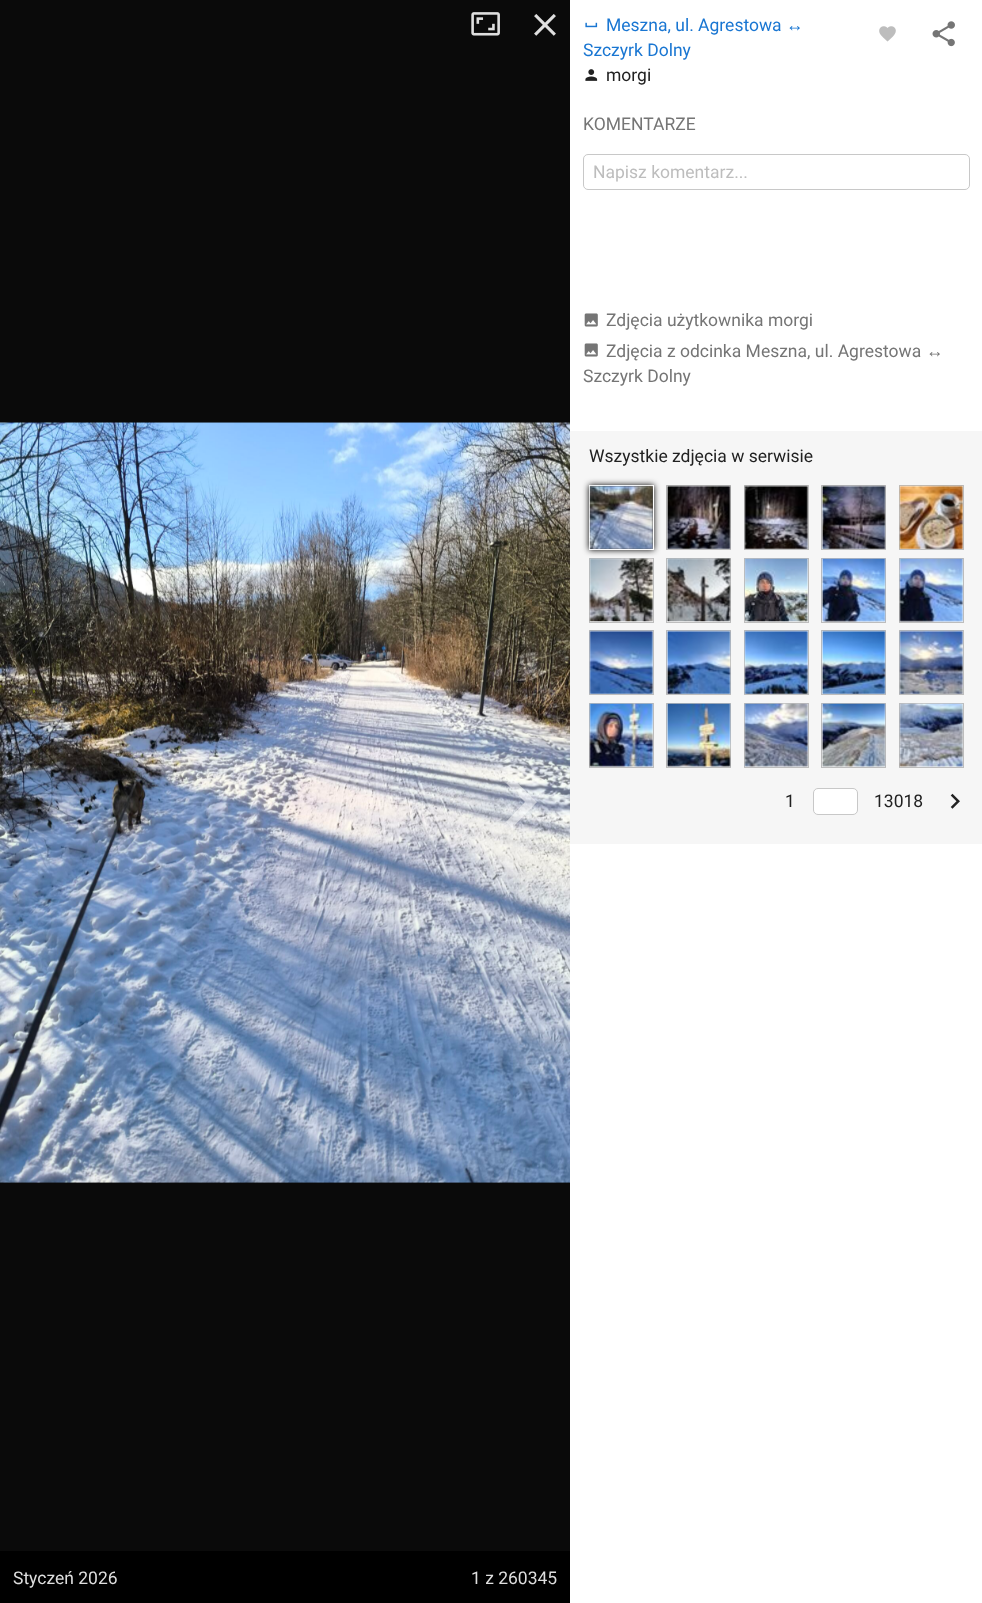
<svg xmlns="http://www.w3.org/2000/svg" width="982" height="1603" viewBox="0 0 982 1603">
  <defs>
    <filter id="blur1" x="-50%" y="-200%" width="200%" height="500%"><feGaussianBlur stdDeviation="3"/></filter>
  </defs>
  <rect width="100%" height="100%" fill="#0a0a0a"/>
  <rect x="570" y="0" width="412" height="1603" fill="#ffffff"/>
  <image x="585" y="22" width="13" height="6" href="img1.png"/>
  <text x="606" y="31" font-family="Roboto" font-size="17.5" fill="#1976d2">Meszna, ul. Agrestowa</text>
  <text x="786" y="31" font-family="Liberation Sans" font-size="17.5" fill="#1976d2">↔</text>
  <text x="583" y="56" font-family="Roboto" font-size="17.5" fill="#1976d2">Szczyrk Dolny</text>
  <image x="585" y="69" width="13" height="12" href="img2.png"/>
  <text x="606" y="81" font-family="Roboto" font-size="17.5" fill="#212121">morgi</text>
  <image x="879" y="26" width="17" height="16" href="img3.png"/>
  <image x="932" y="21" width="23" height="26" href="img4.png"/>
  <text x="583" y="130" font-family="Roboto" font-size="17.5" fill="#757575">KOMENTARZE</text>
  <rect x="583.5" y="154.5" width="386" height="35" rx="4.5" fill="none" stroke="#c8c8c8"/>
  <text x="593" y="178" font-family="Roboto" font-size="17.5" fill="#bdbdbd">Napisz komentarz...</text>
  <image x="584" y="313" width="14" height="14" href="img5.png"/>
  <text x="606" y="326" font-family="Roboto" font-size="17.5" fill="#757575">Zdjęcia użytkownika morgi</text>
  <image x="584" y="343" width="14" height="14" href="img5.png"/>
  <text x="606" y="357" font-family="Roboto" font-size="17.5" fill="#757575">Zdjęcia z odcinka Meszna, ul. Agrestowa</text>
  <text x="926" y="357" font-family="Liberation Sans" font-size="17.5" fill="#757575">↔</text>
  <text x="583" y="382" font-family="Roboto" font-size="17.5" fill="#757575">Szczyrk Dolny</text>
  <rect x="570" y="431" width="412" height="413" fill="#f6f6f6"/>
  <text x="589" y="462" font-family="Roboto" font-size="17.5" fill="#212121">Wszystkie zdjęcia w serwisie</text>
  <rect x="589" y="485" width="65" height="65" fill="#000000" filter="url(#blur1)"/>
  <rect x="589.5" y="485.5" width="64" height="64" fill="none" stroke="#ffffff"/>
  <image x="589" y="485" width="64" height="64" href="img6.png"/>
  <rect x="666.5" y="485.5" width="64" height="64" fill="none" stroke="#bdbdbd"/>
  <image x="666" y="485" width="65" height="64" href="img7.png"/>
  <rect x="744.5" y="485.5" width="64" height="64" fill="none" stroke="#bdbdbd"/>
  <image x="744" y="485" width="64" height="64" href="img8.png"/>
  <rect x="821.5" y="485.5" width="64" height="64" fill="none" stroke="#bdbdbd"/>
  <image x="821" y="485" width="65" height="64" href="img9.png"/>
  <rect x="899.5" y="485.5" width="64" height="64" fill="none" stroke="#bdbdbd"/>
  <image x="899" y="485" width="64" height="64" href="img10.png"/>
  <rect x="589.5" y="558.5" width="64" height="64" fill="none" stroke="#bdbdbd"/>
  <image x="589" y="558" width="64" height="64" href="img11.png"/>
  <rect x="666.5" y="558.5" width="64" height="64" fill="none" stroke="#bdbdbd"/>
  <image x="666" y="558" width="65" height="64" href="img12.png"/>
  <rect x="744.5" y="558.5" width="64" height="64" fill="none" stroke="#bdbdbd"/>
  <image x="744" y="558" width="64" height="64" href="img13.png"/>
  <rect x="821.5" y="558.5" width="64" height="64" fill="none" stroke="#bdbdbd"/>
  <image x="821" y="558" width="65" height="64" href="img14.png"/>
  <rect x="899.5" y="558.5" width="64" height="64" fill="none" stroke="#bdbdbd"/>
  <image x="899" y="558" width="64" height="64" href="img15.png"/>
  <rect x="589.5" y="630.5" width="64" height="64" fill="none" stroke="#bdbdbd"/>
  <image x="589" y="630" width="64" height="64" href="img16.png"/>
  <rect x="666.5" y="630.5" width="64" height="64" fill="none" stroke="#bdbdbd"/>
  <image x="666" y="630" width="65" height="64" href="img17.png"/>
  <rect x="744.5" y="630.5" width="64" height="64" fill="none" stroke="#bdbdbd"/>
  <image x="744" y="630" width="64" height="64" href="img18.png"/>
  <rect x="821.5" y="630.5" width="64" height="64" fill="none" stroke="#bdbdbd"/>
  <image x="821" y="630" width="65" height="64" href="img19.png"/>
  <rect x="899.5" y="630.5" width="64" height="64" fill="none" stroke="#bdbdbd"/>
  <image x="899" y="630" width="64" height="64" href="img20.png"/>
  <rect x="589.5" y="703.5" width="64" height="64" fill="none" stroke="#bdbdbd"/>
  <image x="589" y="703" width="64" height="64" href="img21.png"/>
  <rect x="666.5" y="703.5" width="64" height="64" fill="none" stroke="#bdbdbd"/>
  <image x="666" y="703" width="65" height="64" href="img22.png"/>
  <rect x="744.5" y="703.5" width="64" height="64" fill="none" stroke="#bdbdbd"/>
  <image x="744" y="703" width="64" height="64" href="img23.png"/>
  <rect x="821.5" y="703.5" width="64" height="64" fill="none" stroke="#bdbdbd"/>
  <image x="821" y="703" width="65" height="64" href="img24.png"/>
  <rect x="899.5" y="703.5" width="64" height="64" fill="none" stroke="#bdbdbd"/>
  <image x="899" y="703" width="64" height="64" href="img25.png"/>
  <text x="785" y="807" font-family="Roboto" font-size="17.5" fill="#212121">1</text>
  <rect x="813.5" y="788.5" width="44" height="26" rx="4.5" fill="#ffffff" stroke="#c8c8c8"/>
  <text x="874" y="807" font-family="Roboto" font-size="17.5" fill="#212121">13018</text>
  <image x="950" y="793" width="10" height="16" href="img26.png"/>
  <image x="471" y="12" width="29" height="24" href="img27.png"/>
  <image x="534" y="14" width="22" height="22" href="img28.png"/>
  <image x="0" y="422" width="570" height="761" href="img29.png"/>
  <path d="M512 778L506 783L525 802L506 822L512 828L537 802Z" fill="#ffffff" fill-opacity="0.5"/>
  <rect x="0" y="1551" width="570" height="52" fill="#000000"/>
  <text x="13" y="1584" font-family="Roboto" font-size="17.5" fill="#dedede">Styczeń 2026</text>
  <text x="471" y="1584" font-family="Roboto" font-size="17.5" fill="#dedede">1 z 260345</text>
</svg>
